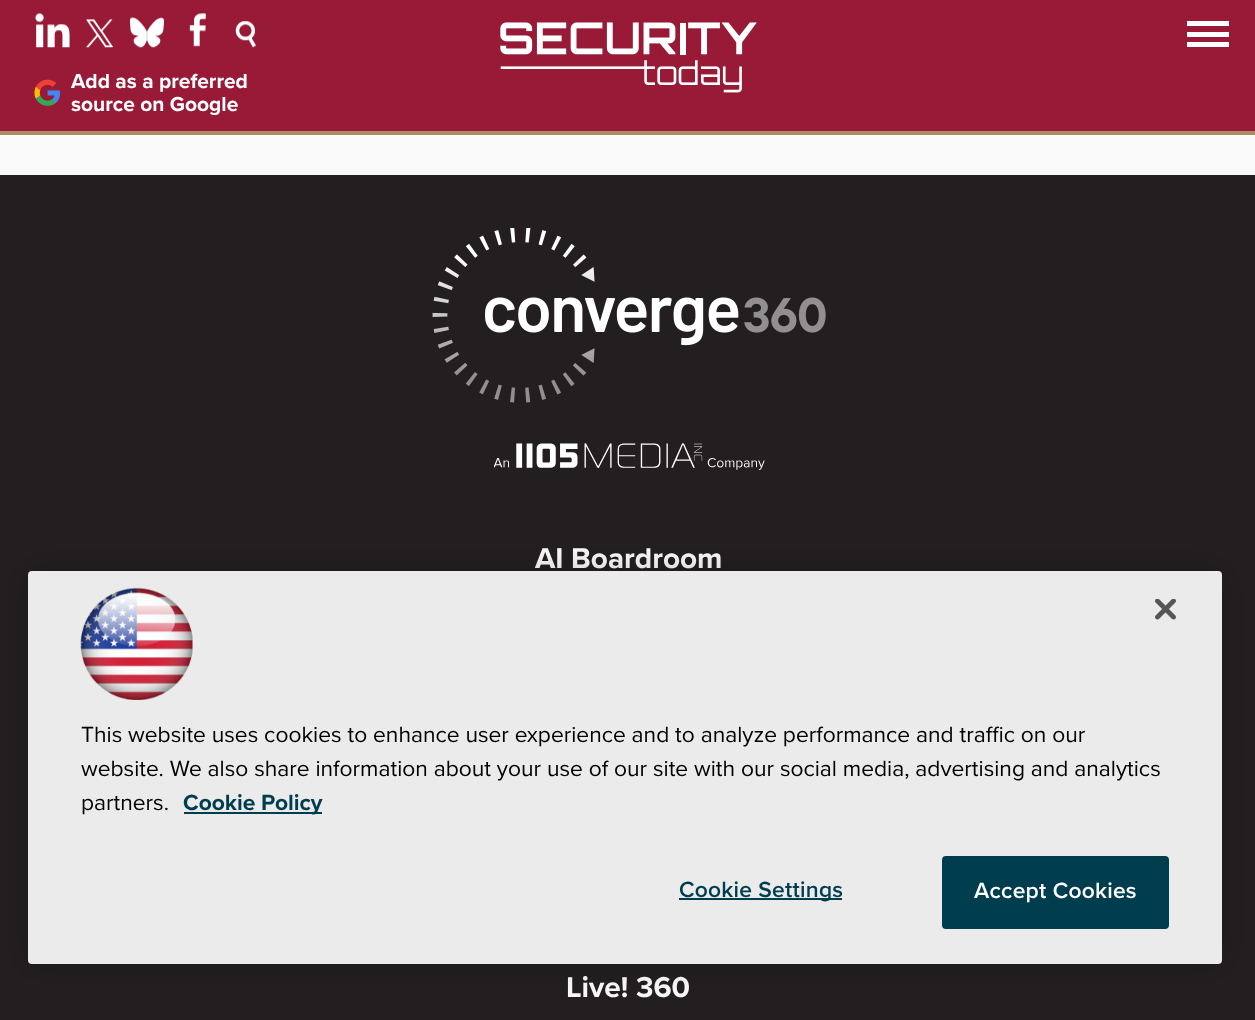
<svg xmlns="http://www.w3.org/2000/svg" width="1255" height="1020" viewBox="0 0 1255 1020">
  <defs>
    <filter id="blur1" x="-50%" y="-200%" width="200%" height="500%"><feGaussianBlur stdDeviation="16"/></filter>
  </defs>
  <rect width="100%" height="100%" fill="#f9f9f9"/>
  <rect x="0" y="0" width="1255" height="131" fill="#991a37"/>
  <rect x="0" y="131" width="1255" height="4" fill="#ab8c68"/>
  <image x="35" y="13" width="35" height="35" href="img1.png"/>
  <image x="86" y="19" width="27" height="29" href="img2.png"/>
  <image x="130" y="17" width="34" height="31" href="img3.png"/>
  <image x="189" y="13" width="17" height="34" href="img4.png"/>
  <image x="235" y="21" width="21" height="27" href="img5.png"/>
  <image x="34" y="79" width="27" height="27" href="img6.png"/>
  <text x="71" y="88" font-family="Proxima Nova" font-size="21" font-weight="bold" fill="#ffffff">Add as a preferred</text>
  <text x="71" y="111" font-family="Proxima Nova" font-size="21" font-weight="bold" fill="#ffffff">source on Google</text>
  <image x="500" y="22" width="257" height="71" href="img7.png"/>
  <rect x="1187" y="21" width="42" height="5" fill="#ffffff"/>
  <rect x="1187" y="32" width="42" height="5" fill="#ffffff"/>
  <rect x="1187" y="42" width="42" height="5" fill="#ffffff"/>
  <rect x="0" y="175" width="1255" height="845" fill="#231f20"/>
  <image x="432" y="228" width="394" height="175" href="img8.png"/>
  <image x="494" y="443" width="271" height="27" href="img9.png"/>
  <text x="535" y="568" font-family="Proxima Nova" font-size="29.75" font-weight="bold" fill="#f9f9f9">AI Boardroom</text>
  <text x="566" y="997" font-family="Proxima Nova" font-size="29.75" font-weight="bold" fill="#f9f9f9">Live! 360</text>
  <rect x="28" y="571" width="1194" height="393" rx="4" fill="#000000" fill-opacity="0.2" filter="url(#blur1)"/>
  <rect x="28" y="571" width="1194" height="393" rx="4" fill="#ebebeb"/>
  <image x="1155" y="599" width="21" height="21" href="img10.png"/>
  <image x="80" y="587" width="113" height="113" href="img11.png"/>
  <text x="81" y="742" font-family="Proxima Nova" font-size="22.75" fill="#000000">This website uses cookies to enhance user experience and to analyze performance and traffic on our</text>
  <text x="81" y="776" font-family="Proxima Nova" font-size="22.75" fill="#000000">website. We also share information about your use of our site with our social media, advertising and analytics</text>
  <text x="81" y="810" font-family="Proxima Nova" font-size="22.75" fill="#000000">partners.</text>
  <rect x="184" y="812" width="138" height="2" fill="#003d4f"/>
  <text x="183" y="810" font-family="Proxima Nova" font-size="22.75" font-weight="bold" fill="#003d4f">Cookie Policy</text>
  <rect x="679" y="898" width="163" height="2" fill="#003d4f"/>
  <text x="679" y="897" font-family="Proxima Nova" font-size="22.75" font-weight="600" letter-spacing="0.25" fill="#003d4f">Cookie Settings</text>
  <rect x="943" y="857" width="225" height="71" rx="3" fill="#003d4f" stroke="#003d4f" stroke-width="2"/>
  <text x="974" y="898" font-family="Proxima Nova" font-size="22.75" font-weight="600" letter-spacing="0.25" fill="#ffffff">Accept Cookies</text>
</svg>
